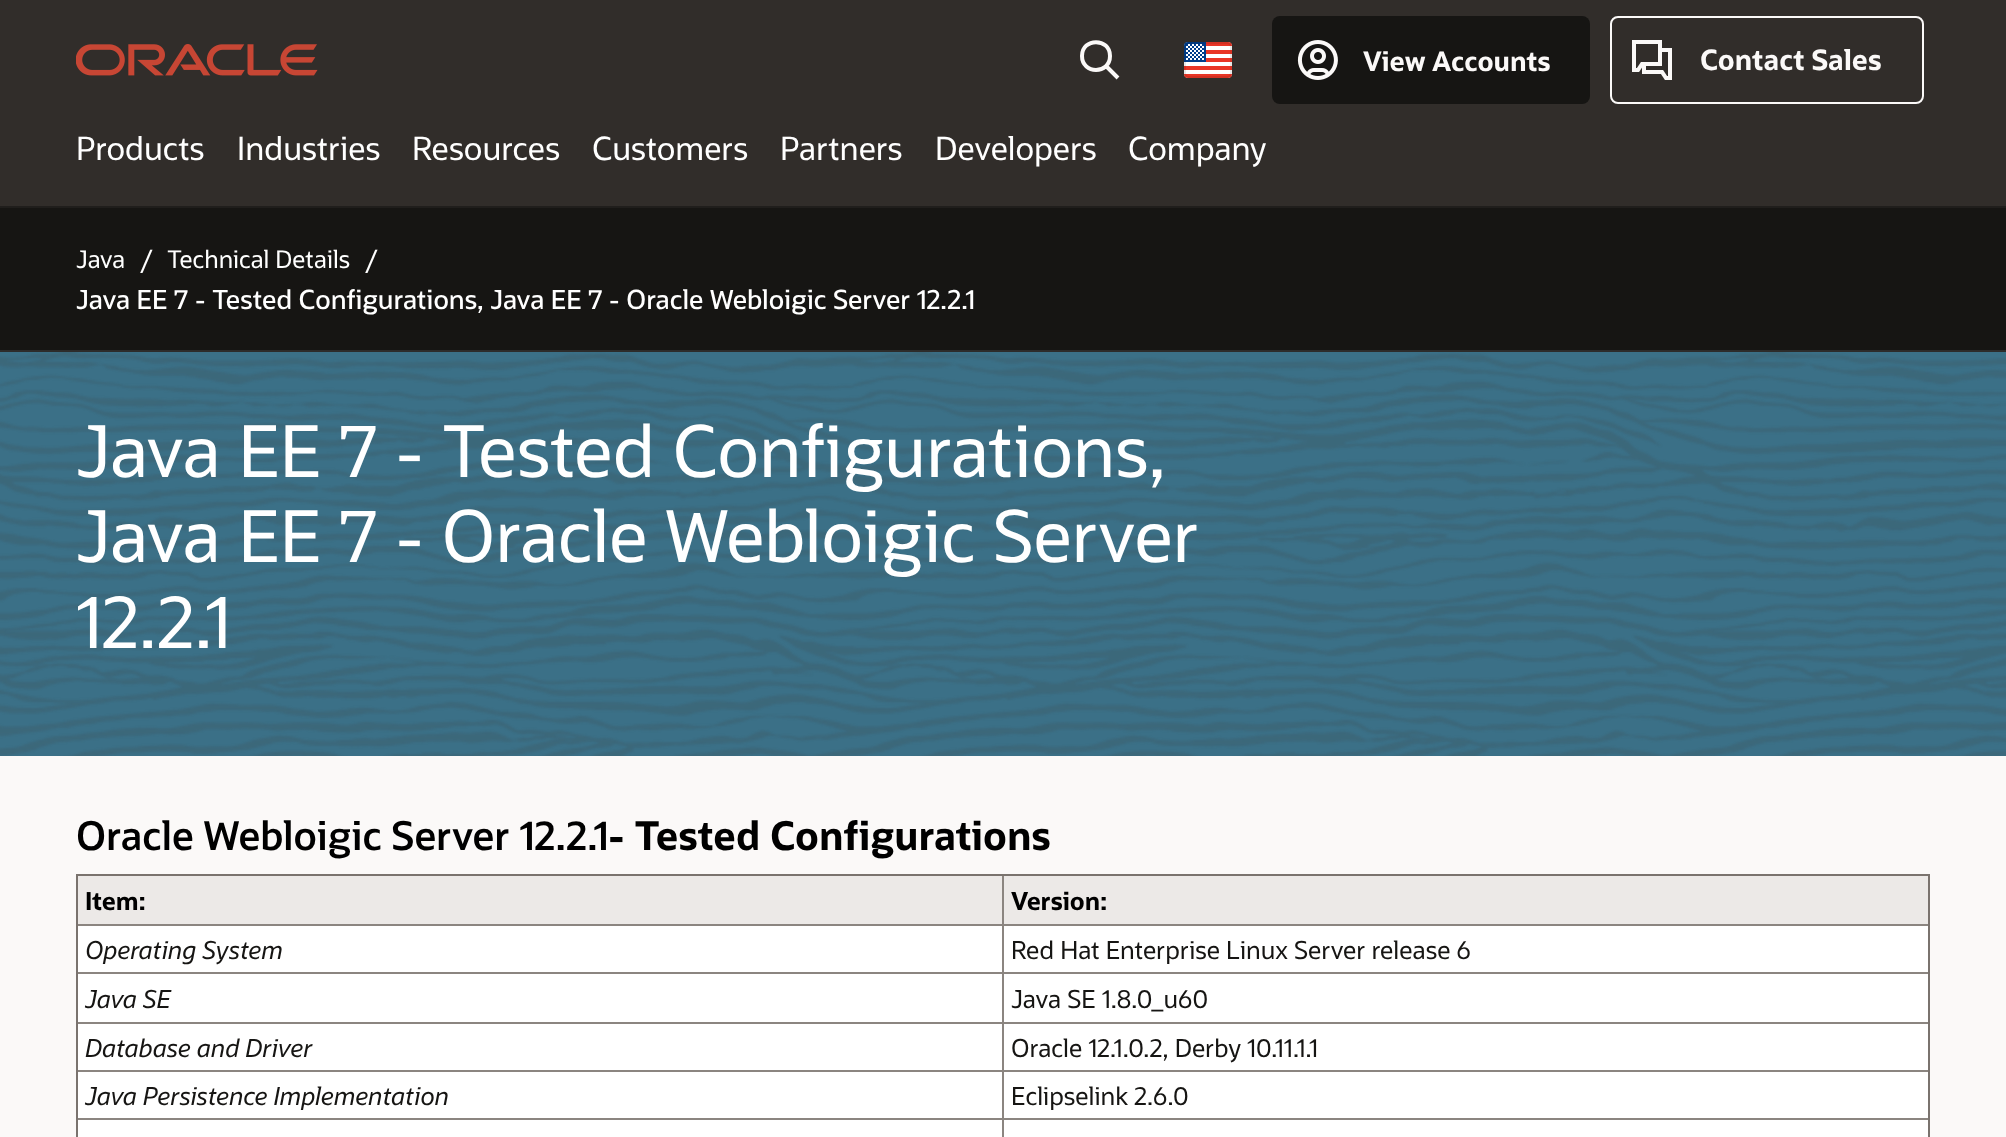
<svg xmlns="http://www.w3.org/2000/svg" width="2006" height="1137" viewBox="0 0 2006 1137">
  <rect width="100%" height="100%" fill="#fbf9f8"/>
  <rect x="0" y="0" width="2006" height="206" fill="#312d2a"/>
  <image x="76" y="44" width="242" height="32" href="img1.png"/>
  <path d="M1106 66L1118 78M1110 56C1110 74.5 1082 74.5 1082 56C1082 37.5 1110 37.5 1110 56Z" fill="none" stroke="#fbf9f8" stroke-width="4"/>
  <image x="1184" y="42" width="48" height="36" href="img2.png"/>
  <rect x="1272" y="16" width="318" height="88" rx="8" fill="#161513"/>
  <image x="1297" y="40" width="41" height="40" href="img3.png"/>
  <text x="1363" y="71" font-family="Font" font-size="26.75" font-weight="bold" fill="#fbf9f8">View Accounts</text>
  <image x="1632" y="40" width="40" height="40" href="img4.png"/>
  <rect x="1611" y="17" width="312" height="86" rx="7" fill="none" stroke="#fbf9f8" stroke-width="2"/>
  <text x="1700" y="70" font-family="Font" font-size="28" font-weight="bold" fill="#fbf9f8">Contact Sales</text>
  <text x="76" y="160" font-family="Font" font-size="32" fill="#ffffff">Products</text>
  <text x="237" y="160" font-family="Font" font-size="32" fill="#ffffff">Industries</text>
  <text x="412" y="160" font-family="Font" font-size="32" fill="#ffffff">Resources</text>
  <text x="592" y="160" font-family="Font" font-size="32" fill="#ffffff">Customers</text>
  <text x="780" y="160" font-family="Font" font-size="32" fill="#ffffff">Partners</text>
  <text x="935" y="160" font-family="Font" font-size="32" fill="#ffffff">Developers</text>
  <text x="1128" y="160" font-family="Font" font-size="32" fill="#ffffff">Company</text>
  <rect x="0" y="206" width="2006" height="2" fill="#201e1c"/>
  <rect x="0" y="208" width="2006" height="142" fill="#161513"/>
  <rect x="0" y="350" width="2006" height="2" fill="#2d2c2b"/>
  <text x="76" y="268" font-family="Font" font-size="24.25" fill="#ffffff">Java</text>
  <text x="140" y="268" font-family="Font" font-size="24.25" fill="#ffffff">/</text>
  <text x="167" y="268" font-family="Font" font-size="24.25" fill="#ffffff">Technical Details</text>
  <text x="365" y="268" font-family="Font" font-size="24.25" fill="#ffffff">/</text>
  <text x="76" y="309" font-family="Font" font-size="26.3" font-weight="500" fill="#ffffff">Java EE 7 - Tested Configurations, Java EE 7 - Oracle Webloigic Server 12.2.1</text>
  <rect x="0" y="352" width="2006" height="404" fill="#3b7087"/>
  <image x="0" y="352" width="2006" height="404" href="img5.png"/>
  <text x="76" y="477" font-family="Font" font-size="71.3" fill="#ffffff">Java EE 7 - Tested Configurations,</text>
  <text x="76" y="562" font-family="Font" font-size="71.3" fill="#ffffff">Java EE 7 - Oracle Webloigic Server</text>
  <text x="76" y="648" font-family="Font" font-size="71.3" fill="#ffffff">12.2.1</text>
  <text x="76" y="850" font-family="Font" font-size="39.5" font-weight="600" fill="#000000">Oracle Webloigic Server 12.2.1</text>
  <text x="608" y="850" font-family="Font" font-size="39.5" font-weight="bold" fill="#000000">- Tested Configurations</text>
  <rect x="76" y="874" width="1854" height="2" fill="#7a736e"/>
  <rect x="1928" y="874" width="2" height="263" fill="#7a736e"/>
  <rect x="76" y="874" width="2" height="263" fill="#7a736e"/>
  <rect x="78" y="876" width="924" height="48" fill="#ece9e7"/>
  <text x="85" y="910" font-family="Font" font-size="24.7" font-weight="bold" fill="#000000">Item:</text>
  <rect x="1004" y="876" width="924" height="48" fill="#ece9e7"/>
  <rect x="1002" y="924" width="926" height="2" fill="#8b8580"/>
  <rect x="1002" y="972" width="926" height="2" fill="#8b8580"/>
  <rect x="1002" y="1022" width="926" height="2" fill="#8b8580"/>
  <rect x="1002" y="1070" width="926" height="2" fill="#8b8580"/>
  <rect x="1002" y="1118" width="926" height="2" fill="#8b8580"/>
  <rect x="1002" y="1118" width="2" height="19" fill="#8b8580"/>
  <rect x="78" y="1118" width="926" height="2" fill="#8b8580"/>
  <rect x="1002" y="1070" width="2" height="50" fill="#8b8580"/>
  <rect x="78" y="1070" width="926" height="2" fill="#8b8580"/>
  <rect x="1002" y="1022" width="2" height="50" fill="#8b8580"/>
  <rect x="78" y="1022" width="926" height="2" fill="#8b8580"/>
  <rect x="1002" y="972" width="2" height="52" fill="#8b8580"/>
  <rect x="78" y="972" width="926" height="2" fill="#8b8580"/>
  <rect x="1002" y="924" width="2" height="50" fill="#8b8580"/>
  <rect x="78" y="924" width="926" height="2" fill="#8b8580"/>
  <rect x="1002" y="876" width="2" height="50" fill="#8b8580"/>
  <text x="1011" y="910" font-family="Font" font-size="24.7" font-weight="bold" fill="#000000">Version:</text>
  <rect x="78" y="926" width="924" height="46" fill="#ffffff"/>
  <text x="85" y="959" font-family="Font" font-size="24.7" font-style="italic" fill="#161513">Operating System</text>
  <rect x="1004" y="926" width="924" height="46" fill="#ffffff"/>
  <text x="1011" y="959" font-family="Font" font-size="24.7" fill="#161513">Red Hat Enterprise Linux Server release 6</text>
  <rect x="78" y="974" width="924" height="48" fill="#ffffff"/>
  <text x="85" y="1008" font-family="Font" font-size="24.7" font-style="italic" fill="#161513">Java SE</text>
  <rect x="1004" y="974" width="924" height="48" fill="#ffffff"/>
  <text x="1011" y="1008" font-family="Font" font-size="24.7" fill="#161513">Java SE 1.8.0_u60</text>
  <rect x="78" y="1024" width="924" height="46" fill="#ffffff"/>
  <text x="85" y="1057" font-family="Font" font-size="24.7" font-style="italic" fill="#161513">Database and Driver</text>
  <rect x="1004" y="1024" width="924" height="46" fill="#ffffff"/>
  <text x="1011" y="1057" font-family="Font" font-size="24.7" fill="#161513">Oracle 12.1.0.2, Derby 10.11.1.1</text>
  <rect x="78" y="1072" width="924" height="46" fill="#ffffff"/>
  <text x="85" y="1105" font-family="Font" font-size="24.7" font-style="italic" fill="#161513">Java Persistence Implementation</text>
  <rect x="1004" y="1072" width="924" height="46" fill="#ffffff"/>
  <text x="1011" y="1105" font-family="Font" font-size="24.7" fill="#161513">Eclipselink 2.6.0</text>
  <rect x="78" y="1120" width="924" height="17" fill="#ffffff"/>
  <rect x="1004" y="1120" width="924" height="17" fill="#ffffff"/>
</svg>
